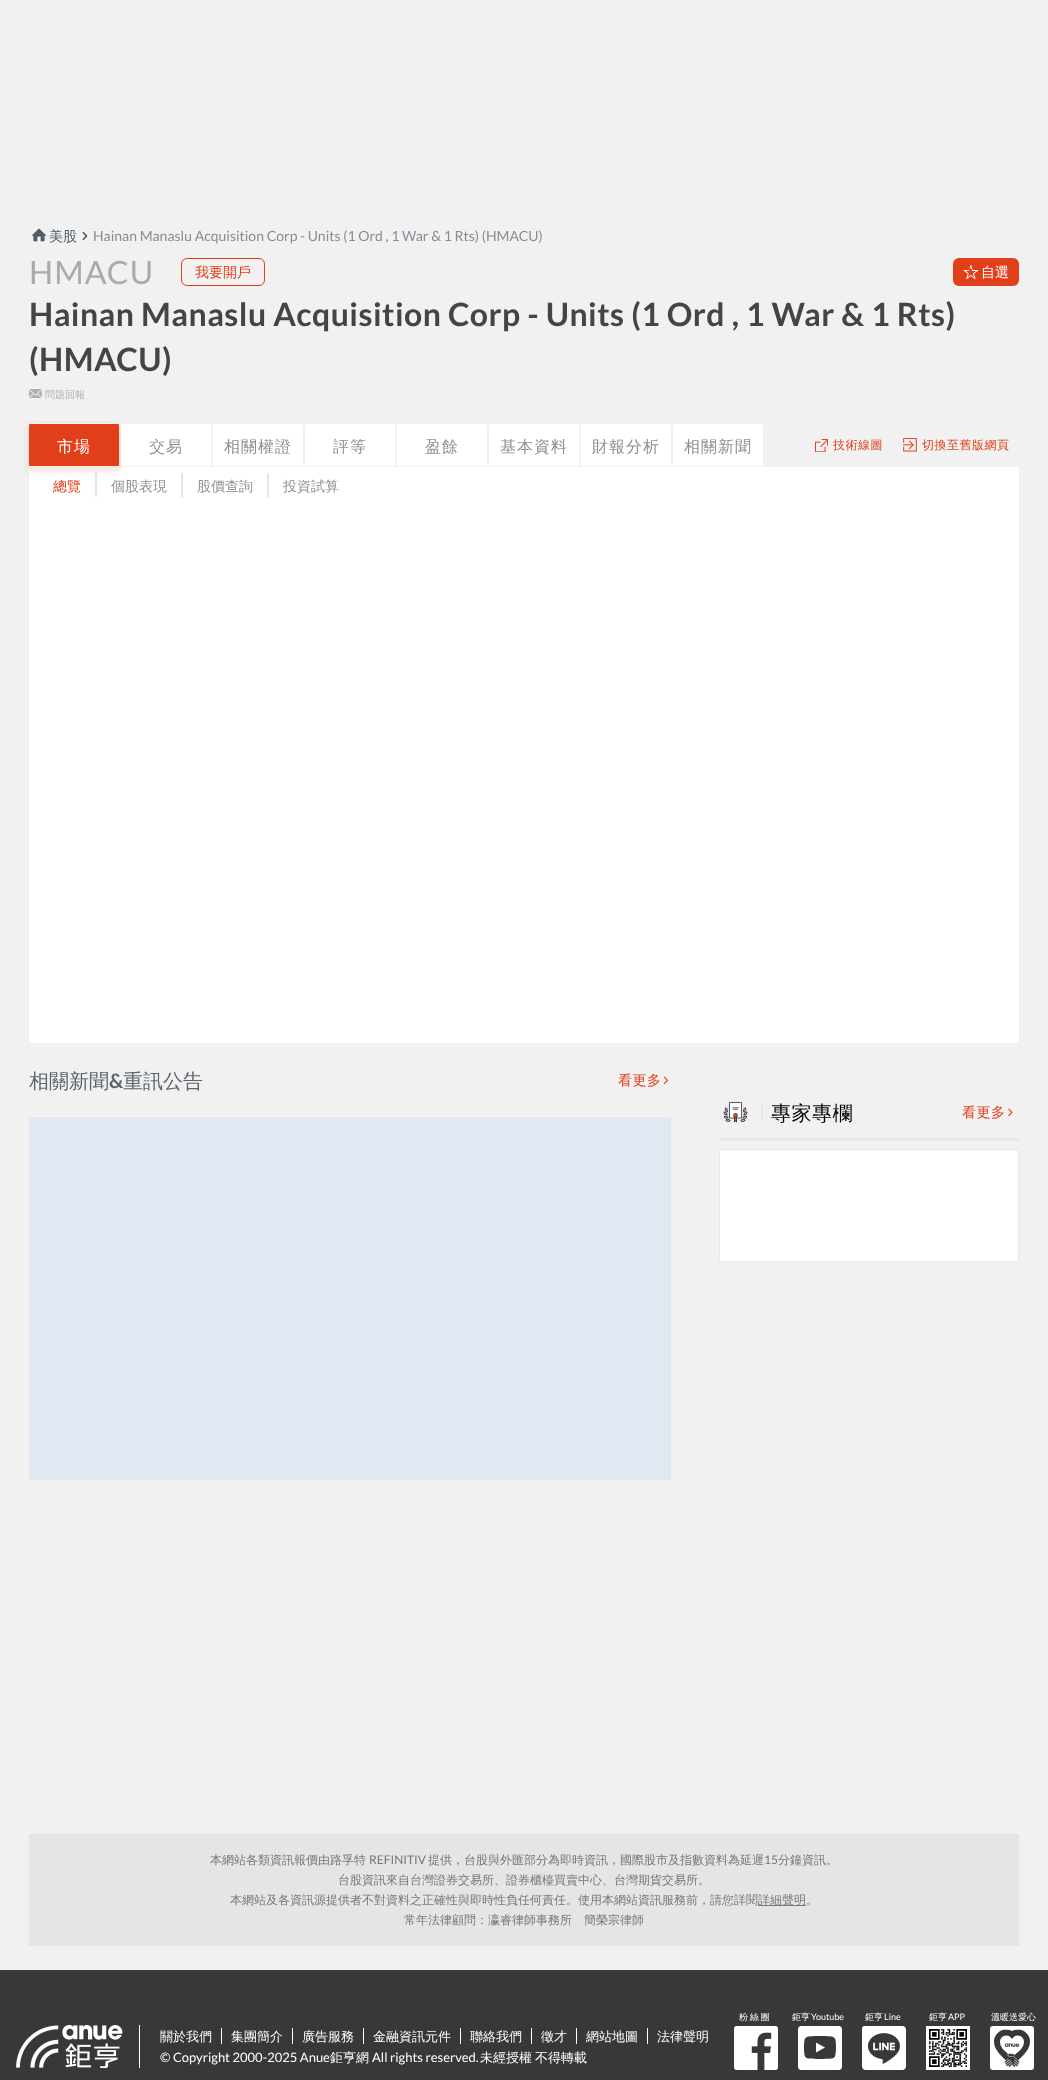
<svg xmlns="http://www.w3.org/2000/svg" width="1048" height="2080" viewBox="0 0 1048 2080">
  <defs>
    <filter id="blur1" x="-50%" y="-200%" width="200%" height="500%"><feGaussianBlur stdDeviation="3"/></filter>
  </defs>
  <rect width="100%" height="100%" fill="#f1f1f1"/>
  <image x="31" y="228" width="16" height="14" href="img1.png"/>
  <text x="49" y="241" font-family="WenQuanYi Zen Hei" font-size="14" font-weight="500" fill="#515c69">美股</text>
  <image x="82" y="232" width="6" height="8" href="img2.png"/>
  <text x="93" y="241" font-family="Lato" font-size="14" fill="#848d97">Hainan Manaslu Acquisition Corp - Units (1 Ord , 1 War &amp; 1 Rts) (HMACU)</text>
  <text x="29" y="284" font-family="Lato" font-size="32" letter-spacing="1" fill="#aaaaaa">HMACU</text>
  <rect x="181.5" y="258.5" width="83" height="27" rx="5.5" fill="none" stroke="#e03f19"/>
  <text x="195" y="277" font-family="WenQuanYi Zen Hei" font-size="14" font-weight="500" fill="#e03f19">我要開戶</text>
  <rect x="953" y="258" width="66" height="28" rx="6" fill="#e03f19"/>
  <image x="963" y="264" width="16" height="16" href="img3.png"/>
  <text x="981" y="277" font-family="WenQuanYi Zen Hei" font-size="14" font-weight="500" fill="#ffffff">自選</text>
  <text x="29" y="326" font-family="Lato" font-size="32" font-weight="bold" letter-spacing="0.45" fill="#444444">Hainan Manaslu Acquisition Corp - Units (1 Ord , 1 War &amp; 1 Rts)</text>
  <text x="29" y="371" font-family="Lato" font-size="32" font-weight="bold" letter-spacing="0.45" fill="#444444">(HMACU)</text>
  <image x="29" y="389" width="13" height="9" href="img4.png"/>
  <text x="45" y="398" font-family="WenQuanYi Zen Hei" font-size="10" font-weight="500" fill="#b1b1b1">問題回報</text>
  <rect x="29" y="467" width="990" height="576" fill="#ffffff"/>
  <rect x="95" y="473" width="2" height="24" fill="#dce7ee"/>
  <rect x="28" y="425" width="92" height="46" rx="3" fill="#e03f19" fill-opacity="0.16" filter="url(#blur1)"/>
  <path d="M31 424H117C118 424 119 424 119 425V465C119 466 118 466 117 466H31C30 466 29 466 29 465V425C29 424 30 424 31 424Z" fill="#e03f19"/>
  <rect x="30" y="423" width="88" height="1" fill="#f2f2f2"/>
  <rect x="30" y="466" width="88" height="1" fill="#f2f2f2"/>
  <text x="57" y="452" font-family="WenQuanYi Zen Hei" font-size="16" font-weight="500" letter-spacing="1" fill="#ffffff">市場</text>
  <path d="M123 424H209C210 424 211 424 211 425V465C211 466 210 466 209 466H123C122 466 121 466 121 465V425C121 424 122 424 123 424Z" fill="#ffffff"/>
  <rect x="122" y="466" width="3" height="1" fill="#f2f2f2"/>
  <text x="149" y="452" font-family="WenQuanYi Zen Hei" font-size="16" font-weight="500" letter-spacing="1" fill="#8f8f8f">交易</text>
  <path d="M215 424H301C302 424 303 424 303 425V465C303 466 302 466 301 466H215C214 466 213 466 213 465V425C213 424 214 424 215 424Z" fill="#ffffff"/>
  <text x="224" y="452" font-family="WenQuanYi Zen Hei" font-size="16" font-weight="500" letter-spacing="1" fill="#8f8f8f">相關權證</text>
  <path d="M307 424H393C394 424 395 424 395 425V465C395 466 394 466 393 466H307C306 466 305 466 305 465V425C305 424 306 424 307 424Z" fill="#ffffff"/>
  <text x="333" y="452" font-family="WenQuanYi Zen Hei" font-size="16" font-weight="500" letter-spacing="1" fill="#8f8f8f">評等</text>
  <path d="M399 424H485C486 424 487 424 487 425V465C487 466 486 466 485 466H399C398 466 397 466 397 465V425C397 424 398 424 399 424Z" fill="#ffffff"/>
  <text x="425" y="452" font-family="WenQuanYi Zen Hei" font-size="16" font-weight="500" letter-spacing="1" fill="#8f8f8f">盈餘</text>
  <path d="M491 424H577C578 424 579 424 579 425V465C579 466 578 466 577 466H491C490 466 489 466 489 465V425C489 424 490 424 491 424Z" fill="#ffffff"/>
  <text x="500" y="452" font-family="WenQuanYi Zen Hei" font-size="16" font-weight="500" letter-spacing="1" fill="#8f8f8f">基本資料</text>
  <path d="M583 424H669C670 424 671 424 671 425V465C671 466 670 466 669 466H583C582 466 581 466 581 465V425C581 424 582 424 583 424Z" fill="#ffffff"/>
  <text x="592" y="452" font-family="WenQuanYi Zen Hei" font-size="16" font-weight="500" letter-spacing="1" fill="#8f8f8f">財報分析</text>
  <path d="M675 424H761C762 424 763 424 763 425V465C763 466 762 466 761 466H675C674 466 673 466 673 465V425C673 424 674 424 675 424Z" fill="#ffffff"/>
  <text x="684" y="452" font-family="WenQuanYi Zen Hei" font-size="16" font-weight="500" letter-spacing="1" fill="#8f8f8f">相關新聞</text>
  <image x="815" y="439" width="13" height="13" href="img5.png"/>
  <text x="833" y="449" font-family="WenQuanYi Zen Hei" font-size="12" font-weight="500" letter-spacing="0.5" fill="#e03f19">技術線圖</text>
  <image x="903" y="438" width="14" height="14" href="img6.png"/>
  <text x="922" y="449" font-family="WenQuanYi Zen Hei" font-size="12" font-weight="500" letter-spacing="0.5" fill="#e03f19">切換至舊版網頁</text>
  <text x="53" y="491" font-family="WenQuanYi Zen Hei" font-size="14" font-weight="500" fill="#e03f19">總覽</text>
  <text x="111" y="491" font-family="WenQuanYi Zen Hei" font-size="14" font-weight="500" fill="#8f8f8f">個股表現</text>
  <rect x="181" y="473" width="2" height="24" fill="#dce7ee"/>
  <text x="197" y="491" font-family="WenQuanYi Zen Hei" font-size="14" font-weight="500" fill="#8f8f8f">股價查詢</text>
  <rect x="267" y="473" width="2" height="24" fill="#dce7ee"/>
  <text x="283" y="491" font-family="WenQuanYi Zen Hei" font-size="14" font-weight="500" fill="#8f8f8f">投資試算</text>
  <text x="29" y="1088" font-family="WenQuanYi Zen Hei" font-size="20" font-weight="500" fill="#5c656f">相關新聞</text>
  <text x="109" y="1088" font-family="Lato" font-size="20" font-weight="bold" fill="#5c656f">&amp;</text>
  <text x="123" y="1088" font-family="WenQuanYi Zen Hei" font-size="20" font-weight="500" fill="#5c656f">重訊公告</text>
  <image x="663" y="1076" width="5" height="9" href="img7.png"/>
  <text x="618" y="1085" font-family="WenQuanYi Zen Hei" font-size="14" font-weight="500" letter-spacing="0.5" fill="#e03f19">看更多</text>
  <rect x="29" y="1117" width="642" height="363" fill="#e2e8f1"/>
  <rect x="719" y="1138" width="300" height="3" fill="#e8e8e8"/>
  <image x="723" y="1101" width="25" height="22" href="img8.png"/>
  <rect x="761" y="1102" width="2" height="20" fill="#e8e8e8"/>
  <text x="771" y="1120" font-family="WenQuanYi Zen Hei" font-size="20" font-weight="500" letter-spacing="0.5" fill="#000000">專家專欄</text>
  <text x="962" y="1117" font-family="WenQuanYi Zen Hei" font-size="14" font-weight="500" letter-spacing="0.5" fill="#e03f19">看更多</text>
  <image x="1008" y="1108" width="5" height="9" href="img9.png"/>
  <rect x="719.5" y="1149.5" width="299" height="112" rx="1.5" fill="#ffffff" stroke="#e2e8f1"/>
  <rect x="29" y="1834" width="990" height="112" fill="#e5e5e5"/>
  <text x="210" y="1864" font-family="WenQuanYi Zen Hei" font-size="12" font-weight="500" fill="#777777">本網站各類資訊報價由路孚特</text>
  <text x="369" y="1864" font-family="Lato" font-size="12" fill="#777777">REFINITIV</text>
  <text x="428" y="1864" font-family="WenQuanYi Zen Hei" font-size="12" font-weight="500" fill="#777777">提供，台股與外匯部分為即時資訊，國際股市及指數資料為延遲</text>
  <text x="764" y="1864" font-family="Lato" font-size="12" fill="#777777">15</text>
  <text x="778" y="1864" font-family="WenQuanYi Zen Hei" font-size="12" font-weight="500" fill="#777777">分鐘資訊。</text>
  <text x="338" y="1884" font-family="WenQuanYi Zen Hei" font-size="12" font-weight="500" fill="#777777">台股資訊來自台灣證券交易所、證券櫃檯買賣中心、台灣期貨交易所。</text>
  <text x="230" y="1904" font-family="WenQuanYi Zen Hei" font-size="12" font-weight="500" fill="#777777">本網站及各資訊源提供者不對資料之正確性與即時性負任何責任。使用本網站資訊服務前，請您詳閱</text>
  <rect x="758" y="1905" width="48" height="1" fill="#777777"/>
  <text x="758" y="1904" font-family="WenQuanYi Zen Hei" font-size="12" font-weight="500" fill="#777777">詳細聲明。</text>
  <text x="404" y="1924" font-family="WenQuanYi Zen Hei" font-size="12" font-weight="500" fill="#777777">常年法律顧問：瀛睿律師事務所　簡榮宗律師</text>
  <rect x="0" y="1970" width="1048" height="110" fill="#383838"/>
  <text x="739" y="2020" word-spacing="-1" font-family="WenQuanYi Zen Hei" font-size="9" font-weight="500" fill="#ffffff">粉 絲 團</text>
  <image x="734" y="2026" width="44" height="44" href="img10.png"/>
  <text x="792" y="2020" font-family="WenQuanYi Zen Hei" font-size="9" font-weight="500" fill="#ffffff">鉅亨</text>
  <text x="811" y="2020" font-family="Lato" font-size="9" fill="#ffffff">Youtube</text>
  <image x="798" y="2026" width="44" height="44" href="img11.png"/>
  <text x="865" y="2020" font-family="WenQuanYi Zen Hei" font-size="9" font-weight="500" fill="#ffffff">鉅亨</text>
  <text x="884" y="2020" font-family="Lato" font-size="9" fill="#ffffff">Line</text>
  <image x="862" y="2026" width="44" height="44" href="img12.png"/>
  <text x="929" y="2020" font-family="WenQuanYi Zen Hei" font-size="9" font-weight="500" fill="#ffffff">鉅亨</text>
  <text x="948" y="2020" font-family="Lato" font-size="9" fill="#ffffff">APP</text>
  <image x="926" y="2026" width="44" height="44" href="img13.png"/>
  <text x="991" y="2020" font-family="WenQuanYi Zen Hei" font-size="9" font-weight="500" fill="#ffffff">溫暖送愛心</text>
  <image x="990" y="2026" width="44" height="44" href="img14.png"/>
  <image x="16" y="2025" width="107" height="43" href="img15.png"/>
  <rect x="139" y="2025" width="1" height="43" fill="#ffffff"/>
  <text x="160" y="2041" font-family="WenQuanYi Zen Hei" font-size="13" font-weight="500" fill="#ffffff">關於我們</text>
  <text x="231" y="2041" font-family="WenQuanYi Zen Hei" font-size="13" font-weight="500" fill="#ffffff">集團簡介</text>
  <rect x="221" y="2028" width="1" height="16" fill="#ffffff"/>
  <text x="302" y="2041" font-family="WenQuanYi Zen Hei" font-size="13" font-weight="500" fill="#ffffff">廣告服務</text>
  <rect x="292" y="2028" width="1" height="16" fill="#ffffff"/>
  <text x="373" y="2041" font-family="WenQuanYi Zen Hei" font-size="13" font-weight="500" fill="#ffffff">金融資訊元件</text>
  <rect x="363" y="2028" width="1" height="16" fill="#ffffff"/>
  <text x="470" y="2041" font-family="WenQuanYi Zen Hei" font-size="13" font-weight="500" fill="#ffffff">聯絡我們</text>
  <rect x="460" y="2028" width="1" height="16" fill="#ffffff"/>
  <text x="541" y="2041" font-family="WenQuanYi Zen Hei" font-size="13" font-weight="500" fill="#ffffff">徵才</text>
  <rect x="531" y="2028" width="1" height="16" fill="#ffffff"/>
  <text x="586" y="2041" font-family="WenQuanYi Zen Hei" font-size="13" font-weight="500" fill="#ffffff">網站地圖</text>
  <rect x="576" y="2028" width="1" height="16" fill="#ffffff"/>
  <text x="657" y="2041" font-family="WenQuanYi Zen Hei" font-size="13" font-weight="500" fill="#ffffff">法律聲明</text>
  <rect x="647" y="2028" width="1" height="16" fill="#ffffff"/>
  <text x="160" y="2062" font-family="Lato" font-size="13" fill="#ffffff">© Copyright 2000-2025 Anue</text>
  <text x="330" y="2062" font-family="WenQuanYi Zen Hei" font-size="13" font-weight="500" fill="#ffffff">鉅亨網</text>
  <text x="372" y="2062" font-family="Lato" font-size="13" fill="#ffffff">All rights reserved.</text>
  <text x="480" y="2062" word-spacing="-1" font-family="WenQuanYi Zen Hei" font-size="13" font-weight="500" fill="#ffffff">未經授權 不得轉載</text>
</svg>
